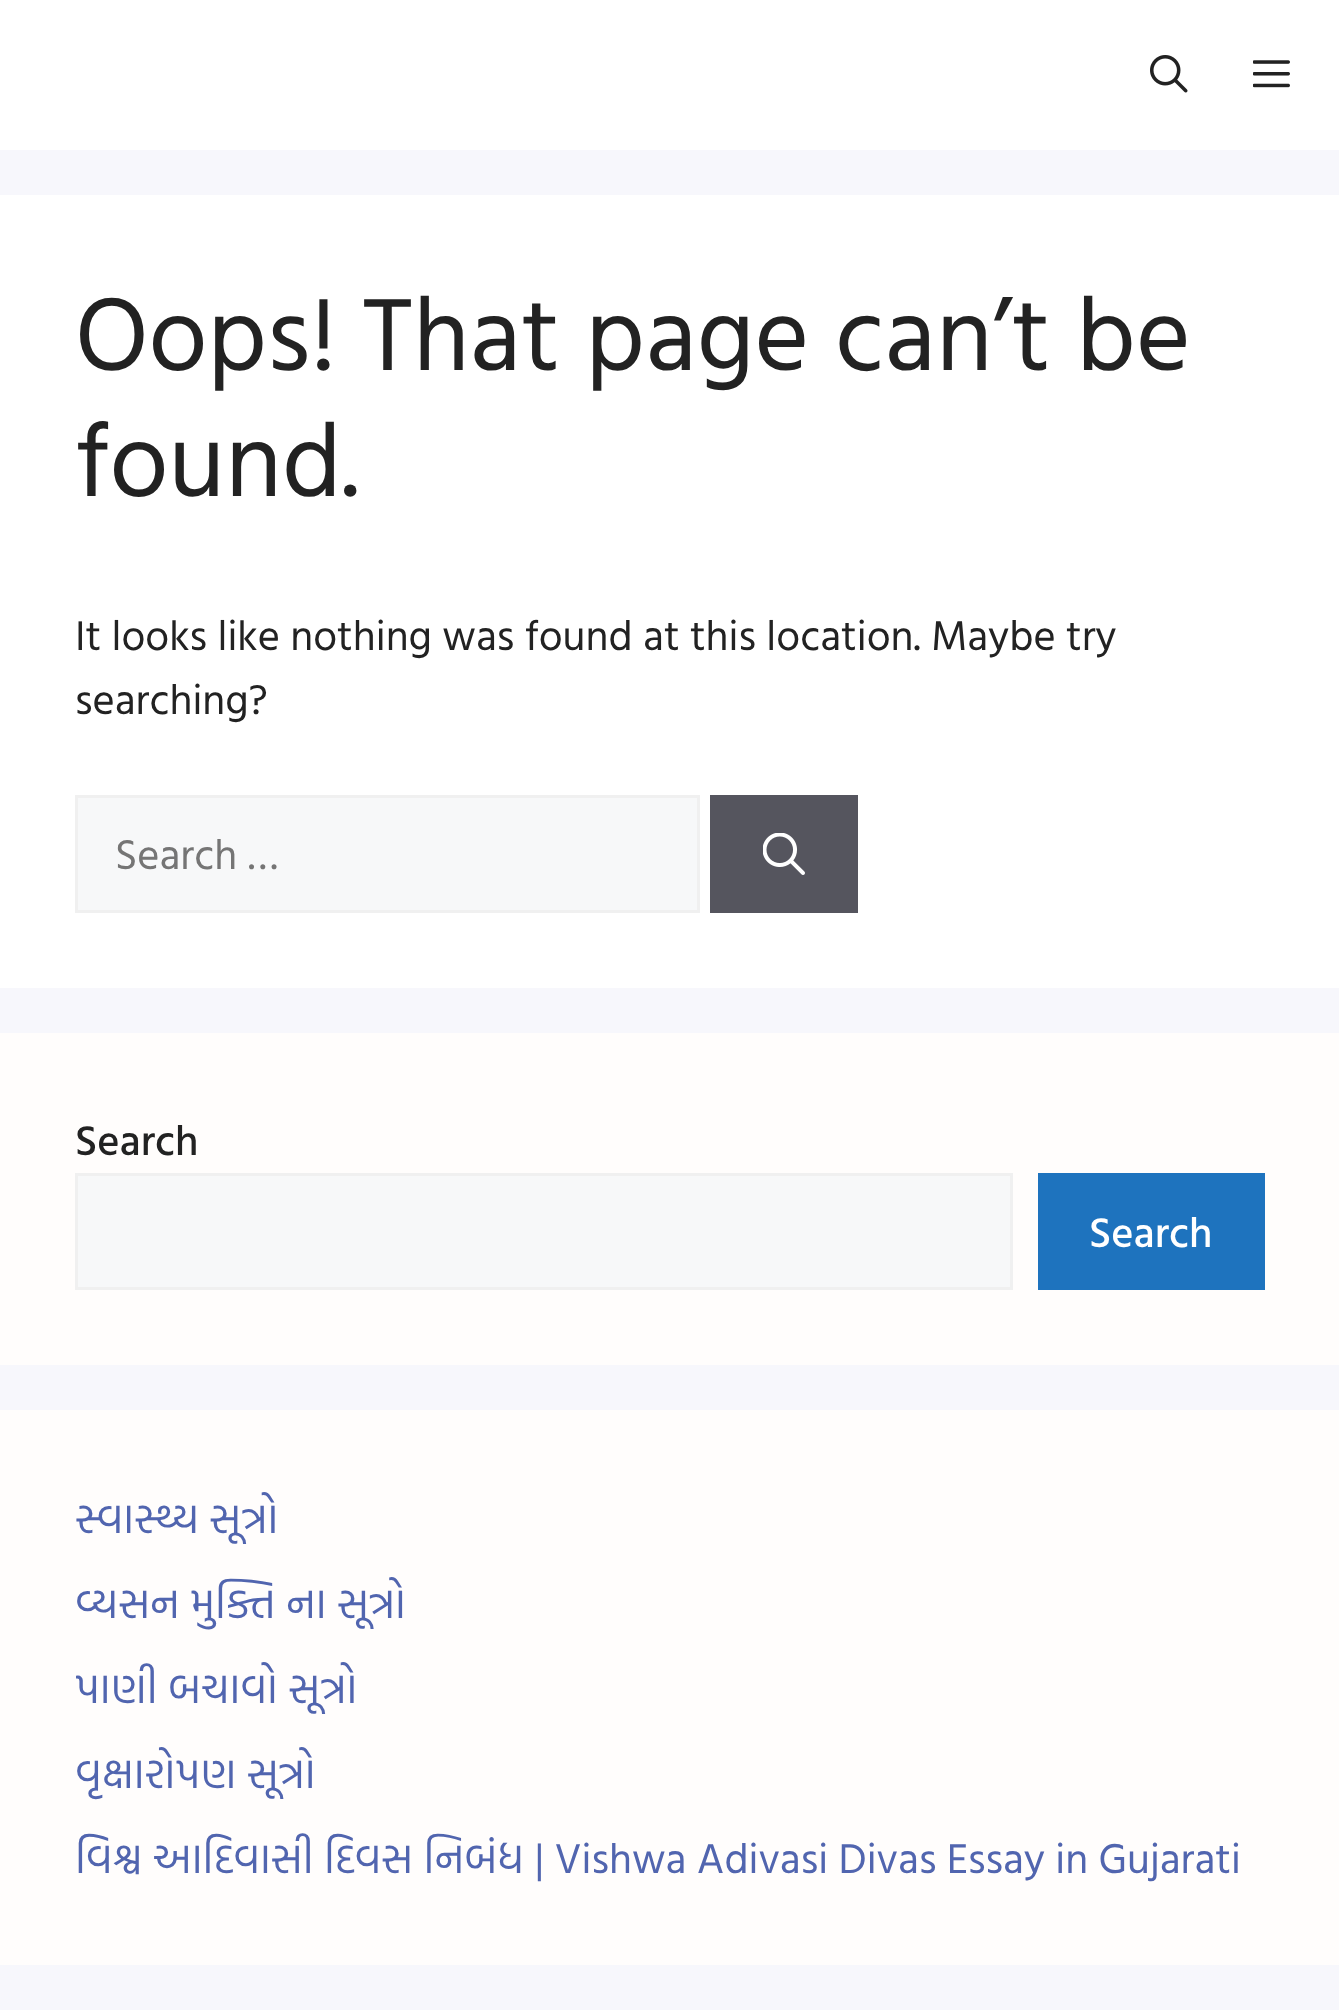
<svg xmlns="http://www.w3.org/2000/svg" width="1339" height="2012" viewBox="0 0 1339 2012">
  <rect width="100%" height="100%" fill="#f7f7fc"/>
  <rect x="0" y="0" width="1339" height="150" fill="#ffffff"/>
  <image x="1150" y="55" width="38" height="38" href="img1.png"/>
  <image x="1253" y="60" width="37" height="28" href="img2.png"/>
  <rect x="0" y="195" width="1339" height="793" fill="#ffffff"/>
  <text x="75" y="370" font-family="Hind Vadodara" font-size="105" fill="#222222">Oops! That page can’t be</text>
  <text x="75" y="496" font-family="Hind Vadodara" font-size="105" fill="#222222">found.</text>
  <text x="75" y="650" font-family="Hind Vadodara" font-size="42.5" fill="#222222">It looks like nothing was found at this location. Maybe try</text>
  <text x="75" y="714" font-family="Hind Vadodara" font-size="42.5" fill="#222222">searching?</text>
  <rect x="76.5" y="796.5" width="622" height="115" fill="#f7f8f9" stroke="#f0f0f0" stroke-width="3"/>
  <text x="115" y="869" font-family="Hind Vadodara" font-size="42.5" fill="#757575">Search …</text>
  <rect x="710" y="795" width="148" height="118" fill="#55555e"/>
  <image x="763" y="833" width="42" height="42" href="img3.png"/>
  <rect x="0" y="1033" width="1339" height="332" fill="#fffdfc"/>
  <text x="75" y="1155" font-family="Hind Vadodara" font-size="42.5" font-weight="500" fill="#222222">Search</text>
  <rect x="76.5" y="1174.5" width="935" height="114" fill="#f7f8f9" stroke="#f0f0f0" stroke-width="3"/>
  <rect x="1038" y="1173" width="227" height="117" fill="#1e73be"/>
  <text x="1089" y="1247" font-family="Hind Vadodara" font-size="42.5" font-weight="500" fill="#ffffff">Search</text>
  <rect x="0" y="1410" width="1339" height="555" fill="#fffdfc"/>
  <text x="75" y="1533" font-family="Hind Vadodara" font-size="42.5" fill="#5165af">સ્વાસ્થ્ય સૂત્રો</text>
  <text x="75" y="1618" font-family="Hind Vadodara" font-size="42.5" fill="#5165af">વ્યસન મુક્તિ ના સૂત્રો</text>
  <text x="75" y="1703" font-family="Hind Vadodara" font-size="42.5" fill="#5165af">પાણી બચાવો સૂત્રો</text>
  <text x="75" y="1788" font-family="Hind Vadodara" font-size="42.5" fill="#5165af">વૃક્ષારોપણ સૂત્રો</text>
  <text x="75" y="1873" font-family="Hind Vadodara" font-size="42.5" fill="#5165af">વિશ્વ આદિવાસી દિવસ નિબંધ | Vishwa Adivasi Divas Essay in Gujarati</text>
  <rect x="0" y="2010" width="1339" height="2" fill="#ffffff"/>
</svg>
